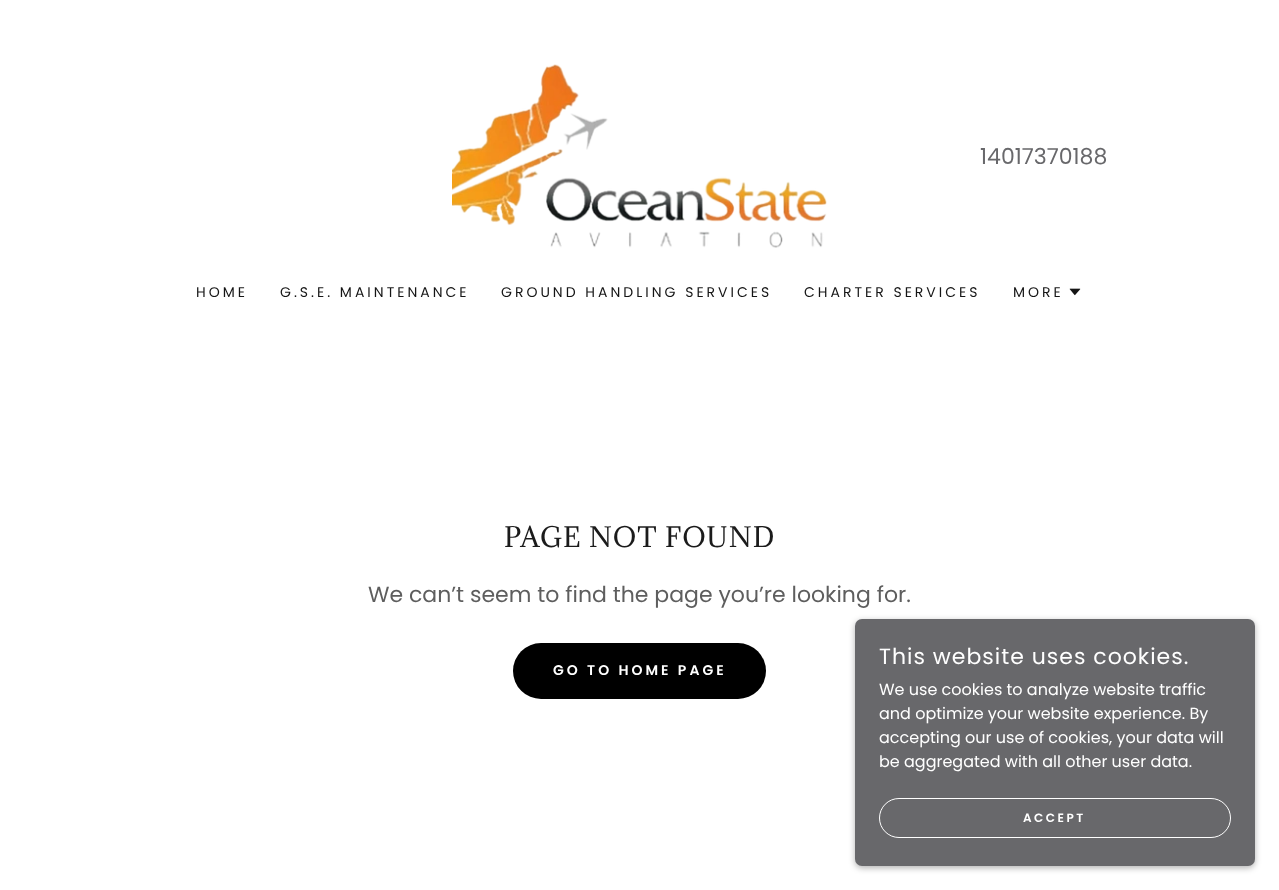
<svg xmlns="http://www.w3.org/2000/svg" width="1279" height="890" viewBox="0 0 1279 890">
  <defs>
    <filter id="blur1" x="-50%" y="-200%" width="200%" height="500%"><feGaussianBlur stdDeviation="3"/></filter>
  </defs>
  <rect width="100%" height="100%" fill="#ffffff"/>
  <image x="452" y="64" width="375" height="184" href="img1.png"/>
  <text x="980" y="164" font-family="Poppins" font-size="22" fill="#68686b">14017370188</text>
  <text x="196" y="297" font-family="Poppins" font-size="14" letter-spacing="3" fill="#151515">HOME</text>
  <text x="280" y="297" font-family="Poppins" font-size="14" letter-spacing="3" fill="#151515">G.S.E. MAINTENANCE</text>
  <text x="501" y="297" font-family="Poppins" font-size="14" letter-spacing="3" fill="#151515">GROUND HANDLING SERVICES</text>
  <text x="804" y="297" font-family="Poppins" font-size="14" letter-spacing="3" fill="#151515">CHARTER SERVICES</text>
  <text x="1013" y="297" font-family="Poppins" font-size="14" letter-spacing="3" fill="#151515">MORE</text>
  <image x="1069" y="288" width="12" height="8" href="img2.png"/>
  <text x="504" y="547" font-family="Adamina" font-size="26" letter-spacing="1" fill="#1b1b1b">PAGE NOT FOUND</text>
  <text x="368" y="602" font-family="Poppins" font-size="22" fill="#5e5e5e">We can’t seem to find the page you’re looking for.</text>
  <rect x="513" y="643" width="253" height="56" rx="28" fill="#000000"/>
  <text x="553" y="675" font-family="Poppins" font-size="14" font-weight="600" letter-spacing="3" fill="#ffffff">GO TO HOME PAGE</text>
  <rect x="855" y="621" width="400" height="247" rx="7" fill="#000000" fill-opacity="0.3" filter="url(#blur1)"/>
  <rect x="855" y="619" width="400" height="247" rx="7" fill="#68686b"/>
  <text x="879" y="664" font-family="Poppins" font-size="22" letter-spacing="1" fill="#ffffff">This website uses cookies.</text>
  <text x="879" y="695" font-family="Poppins" font-size="16" fill="#ffffff">We use cookies to analyze website traffic</text>
  <text x="879" y="719" font-family="Poppins" font-size="16" fill="#ffffff">and optimize your website experience. By</text>
  <text x="879" y="743" font-family="Poppins" font-size="16" fill="#ffffff">accepting our use of cookies, your data will</text>
  <text x="879" y="767" font-family="Poppins" font-size="16" fill="#ffffff">be aggregated with all other user data.</text>
  <rect x="879.5" y="798.5" width="351" height="39" rx="19.5" fill="none" stroke="#ffffff"/>
  <text x="1023" y="822" font-family="Poppins" font-size="12" font-weight="600" letter-spacing="2.5" fill="#ffffff">ACCEPT</text>
</svg>
